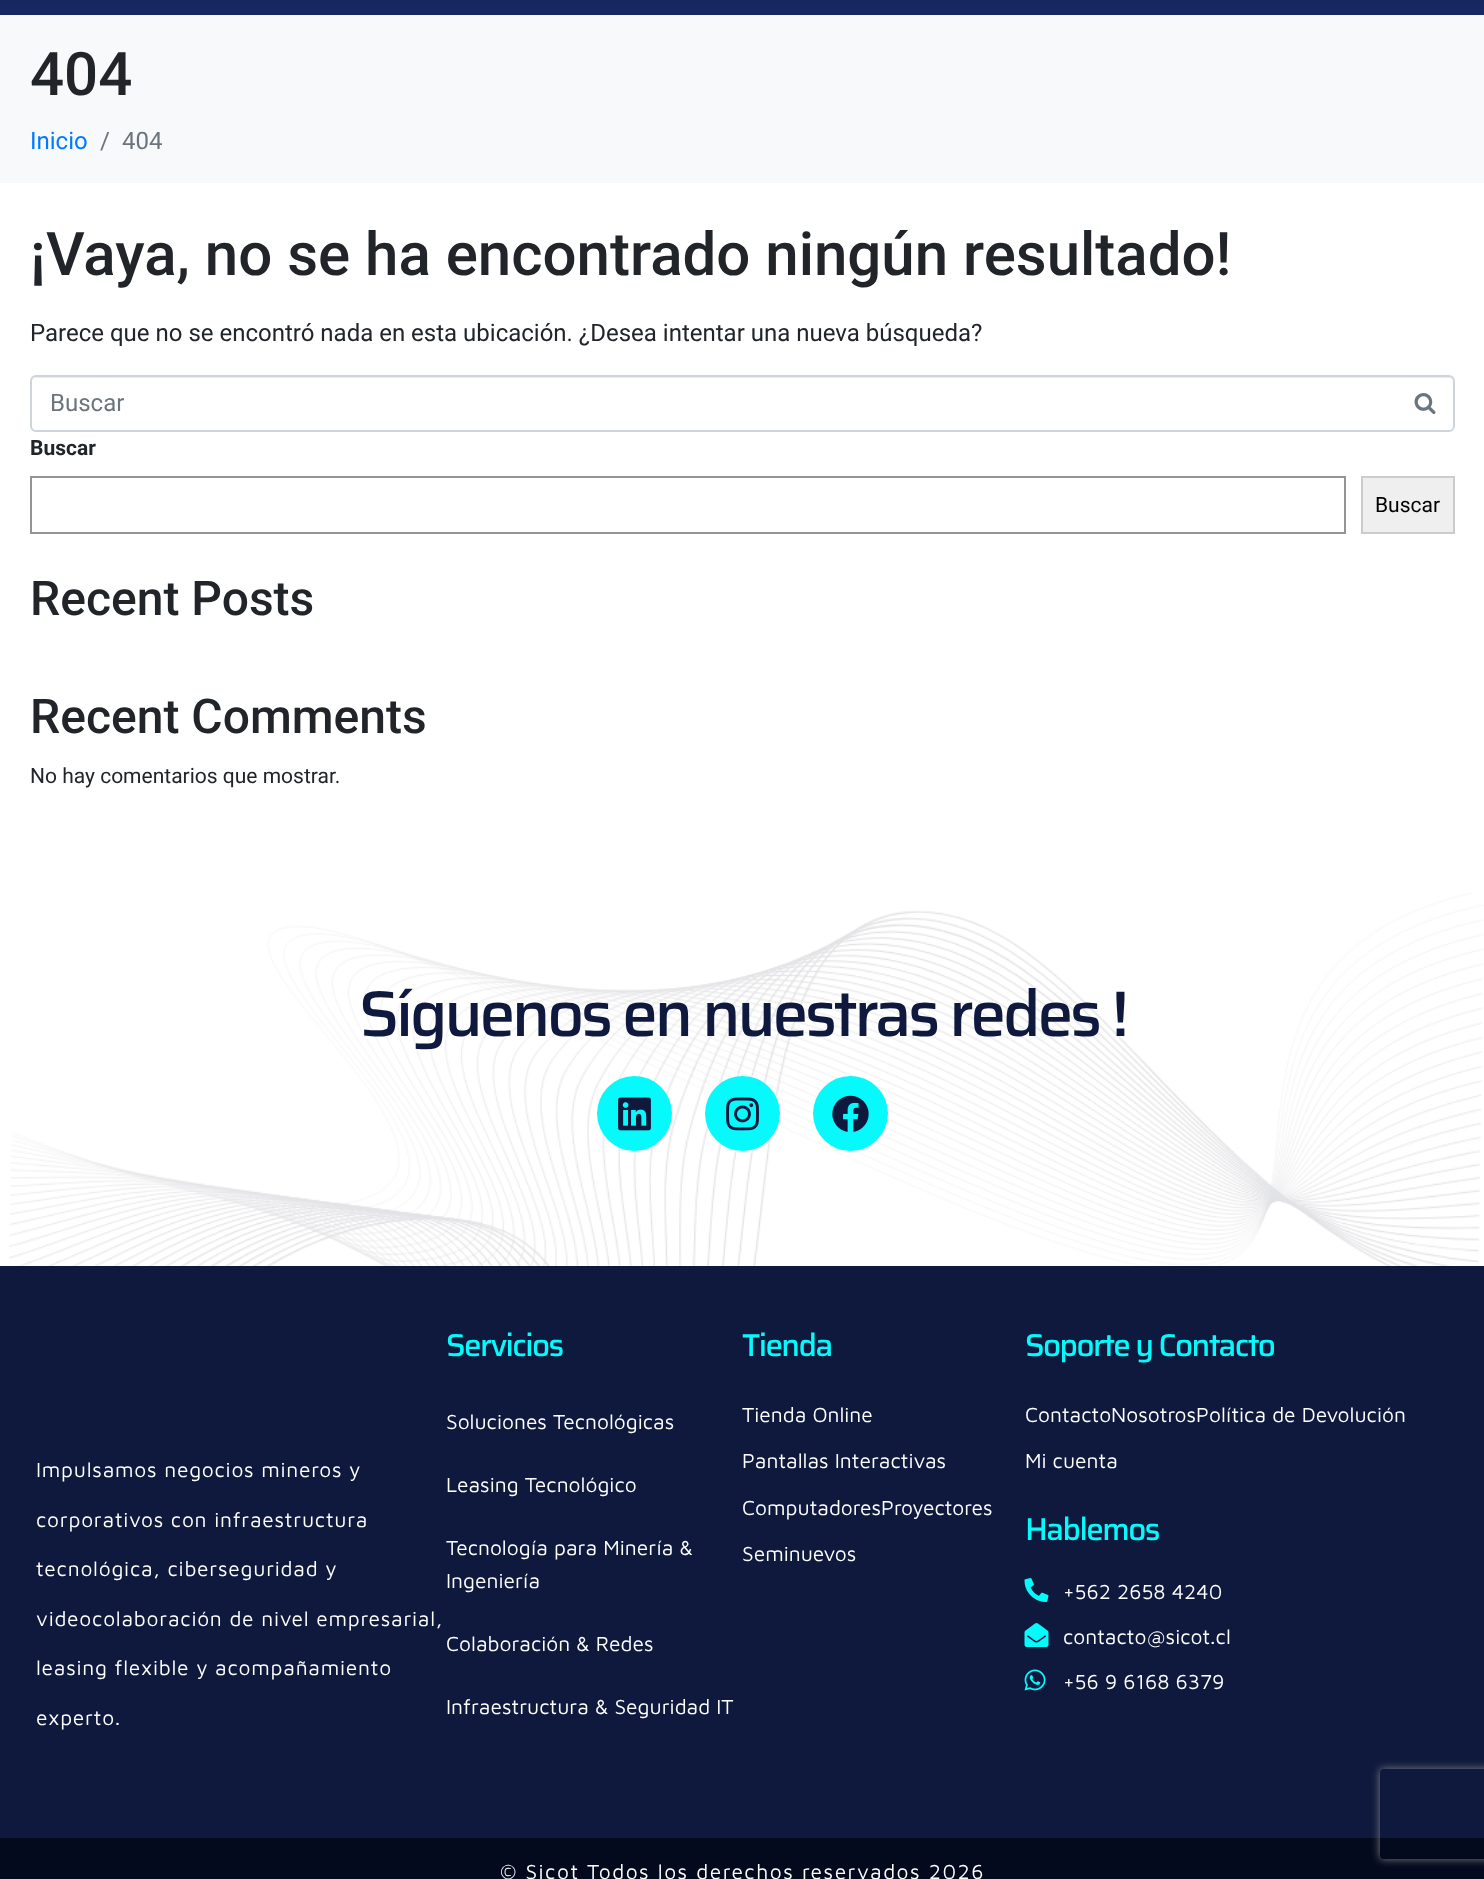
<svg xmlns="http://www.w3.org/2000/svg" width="1484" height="1879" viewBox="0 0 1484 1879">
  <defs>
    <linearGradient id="g1" gradientUnits="userSpaceOnUse" x1="743" y1="-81" x2="743" y2="15"><stop offset="0" stop-color="#0c1532"/><stop offset="1" stop-color="#172966"/></linearGradient>
    <clipPath id="clip1"><path d="M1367 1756H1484V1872H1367ZM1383 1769H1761C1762.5 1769 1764 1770.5 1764 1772V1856C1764 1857.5 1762.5 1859 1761 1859H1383C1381.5 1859 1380 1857.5 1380 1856V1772C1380 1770.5 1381.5 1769 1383 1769Z" clip-rule="evenodd"/></clipPath>
    <filter id="blur1" x="-50%" y="-200%" width="200%" height="500%"><feGaussianBlur stdDeviation="4"/></filter>
  </defs>
  <rect width="100%" height="100%" fill="#ffffff"/>
  <rect x="0" y="0" width="1484" height="15" fill="url(#g1)"/>
  <rect x="0" y="15" width="1484" height="168" fill="#f8f9fa"/>
  <text x="30" y="95" font-family="Roboto" font-size="60" font-weight="500" fill="#212529">404</text>
  <text x="30" y="149" font-family="Roboto" font-size="24" fill="#007bff">Inicio</text>
  <text x="100" y="149" font-family="Roboto" font-size="24" fill="#6c757d">/</text>
  <text x="122" y="149" font-family="Roboto" font-size="24" fill="#6c757d">404</text>
  <text x="30" y="275" font-family="Roboto" font-size="60" font-weight="500" fill="#212529">¡Vaya, no se ha encontrado ningún resultado!</text>
  <text x="30" y="341" font-family="Roboto" font-size="24" fill="#212529">Parece que no se encontró nada en esta ubicación. ¿Desea intentar una nueva búsqueda?</text>
  <path d="M36 378H1449C1451 378 1454 380 1454 382C1454 379 1452 377 1449 377H37C34 377 32 379 32 382C32 380 34 378 36 378Z" fill="#ececec"/>
  <rect x="31" y="376" width="1423" height="55" rx="5" fill="none" stroke="#ced4da" stroke-width="2"/>
  <text x="50" y="411" font-family="Roboto" font-size="24" fill="#6c757d">Buscar</text>
  <image x="1414" y="393" width="22" height="22" href="img1.png"/>
  <text x="30" y="455" font-family="Roboto" font-size="21" font-weight="bold" fill="#212529">Buscar</text>
  <rect x="31" y="477" width="1314" height="56" fill="none" stroke="#949494" stroke-width="2"/>
  <rect x="1362" y="477" width="92" height="56" fill="#efefef" stroke="#cccccc" stroke-width="2"/>
  <text x="1375" y="512" font-family="Roboto" font-size="21" fill="#000000">Buscar</text>
  <text x="30" y="615" font-family="Roboto" font-size="48" font-weight="500" fill="#212529">Recent Posts</text>
  <text x="30" y="733" font-family="Roboto" font-size="48" font-weight="500" fill="#212529">Recent Comments</text>
  <text x="30" y="783" font-family="Roboto" font-size="21" fill="#212529">No hay comentarios que mostrar.</text>
  <image x="9" y="893" width="1475" height="373" href="img2.png"/>
  <text x="359" y="1036" font-family="Saira" font-size="64.5" font-weight="500" letter-spacing="-3.3" fill="#0e193d">Síguenos en nuestras redes !</text>
  <circle cx="634.5" cy="1113.5" r="37.5" fill="#07fafb"/>
  <image x="618" y="1097" width="33" height="34" href="img3.png"/>
  <circle cx="742.5" cy="1113.5" r="37.5" fill="#07fafb"/>
  <image x="726" y="1097" width="33" height="34" href="img4.png"/>
  <circle cx="850.5" cy="1113.5" r="37.5" fill="#07fafb"/>
  <image x="832" y="1095" width="37" height="37" href="img5.png"/>
  <rect x="0" y="1266" width="1484" height="572" fill="#0e193d"/>
  <text x="36" y="1477" font-family="Maven Pro" font-size="21" letter-spacing="0.75" fill="#ffffff">Impulsamos negocios mineros y</text>
  <text x="36" y="1527" font-family="Maven Pro" font-size="21" letter-spacing="0.75" fill="#ffffff">corporativos con infraestructura</text>
  <text x="36" y="1576" font-family="Maven Pro" font-size="21" letter-spacing="0.75" fill="#ffffff">tecnológica, ciberseguridad y</text>
  <text x="36" y="1626" font-family="Maven Pro" font-size="21" letter-spacing="0.75" fill="#ffffff">videocolaboración de nivel empresarial,</text>
  <text x="36" y="1675" font-family="Maven Pro" font-size="21" letter-spacing="0.75" fill="#ffffff">leasing flexible y acompañamiento</text>
  <text x="36" y="1725" font-family="Maven Pro" font-size="21" letter-spacing="0.75" fill="#ffffff">experto.</text>
  <text x="446" y="1356" font-family="Saira" font-size="31.5" font-weight="500" letter-spacing="-1.6" fill="#04fafb">Servicios</text>
  <text x="446" y="1429" font-family="Maven Pro" font-size="21" fill="#ffffff">Soluciones Tecnológicas</text>
  <text x="446" y="1492" font-family="Maven Pro" font-size="21" fill="#ffffff">Leasing Tecnológico</text>
  <text x="446" y="1555" font-family="Maven Pro" font-size="21" fill="#ffffff">Tecnología para Minería &amp;</text>
  <text x="446" y="1588" font-family="Maven Pro" font-size="21" fill="#ffffff">Ingeniería</text>
  <text x="446" y="1651" font-family="Maven Pro" font-size="21" fill="#ffffff">Colaboración &amp; Redes</text>
  <text x="446" y="1714" font-family="Maven Pro" font-size="21" fill="#ffffff">Infraestructura &amp; Seguridad IT</text>
  <text x="742" y="1356" font-family="Saira" font-size="31.5" font-weight="500" letter-spacing="-1.6" fill="#04fafb">Tienda</text>
  <text x="742" y="1422" font-family="Maven Pro" font-size="21" fill="#ffffff">Tienda Online</text>
  <text x="742" y="1468" font-family="Maven Pro" font-size="21" fill="#ffffff">Pantallas Interactivas</text>
  <text x="742" y="1515" font-family="Maven Pro" font-size="21" fill="#ffffff">ComputadoresProyectores</text>
  <text x="742" y="1561" font-family="Maven Pro" font-size="21" fill="#ffffff">Seminuevos</text>
  <text x="1025" y="1356" font-family="Saira" font-size="31.5" font-weight="500" letter-spacing="-1.6" fill="#04fafb">Soporte y Contacto</text>
  <text x="1025" y="1422" font-family="Maven Pro" font-size="21" fill="#ffffff">ContactoNosotrosPolítica de Devolución</text>
  <text x="1025" y="1468" font-family="Maven Pro" font-size="21" fill="#ffffff">Mi cuenta</text>
  <text x="1025" y="1540" font-family="Saira" font-size="31.5" font-weight="500" letter-spacing="-1.6" fill="#04fafb">Hablemos</text>
  <image x="1024" y="1578" width="25" height="24" href="img6.png"/>
  <text x="1063" y="1599" font-family="Maven Pro" font-size="21" fill="#ffffff">+562 2658 4240</text>
  <image x="1024" y="1623" width="25" height="24" href="img7.png"/>
  <text x="1063" y="1644" font-family="Maven Pro" font-size="21" fill="#ffffff">contacto@sicot.cl</text>
  <image x="1024" y="1669" width="22" height="22" href="img8.png"/>
  <text x="1063" y="1689" font-family="Maven Pro" font-size="21" fill="#ffffff">+56 9 6168 6379</text>
  <rect x="0" y="1838" width="1484" height="41" fill="#040a1e"/>
  <text x="500" y="1879" font-family="Maven Pro" font-size="21" letter-spacing="1.5" fill="#ffffff">© Sicot Todos los derechos reservados 2026</text>
  <g clip-path="url(#clip1)">
    <rect x="1380" y="1769" width="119" height="90" rx="3" fill="#808080" filter="url(#blur1)"/>
  </g>
</svg>
